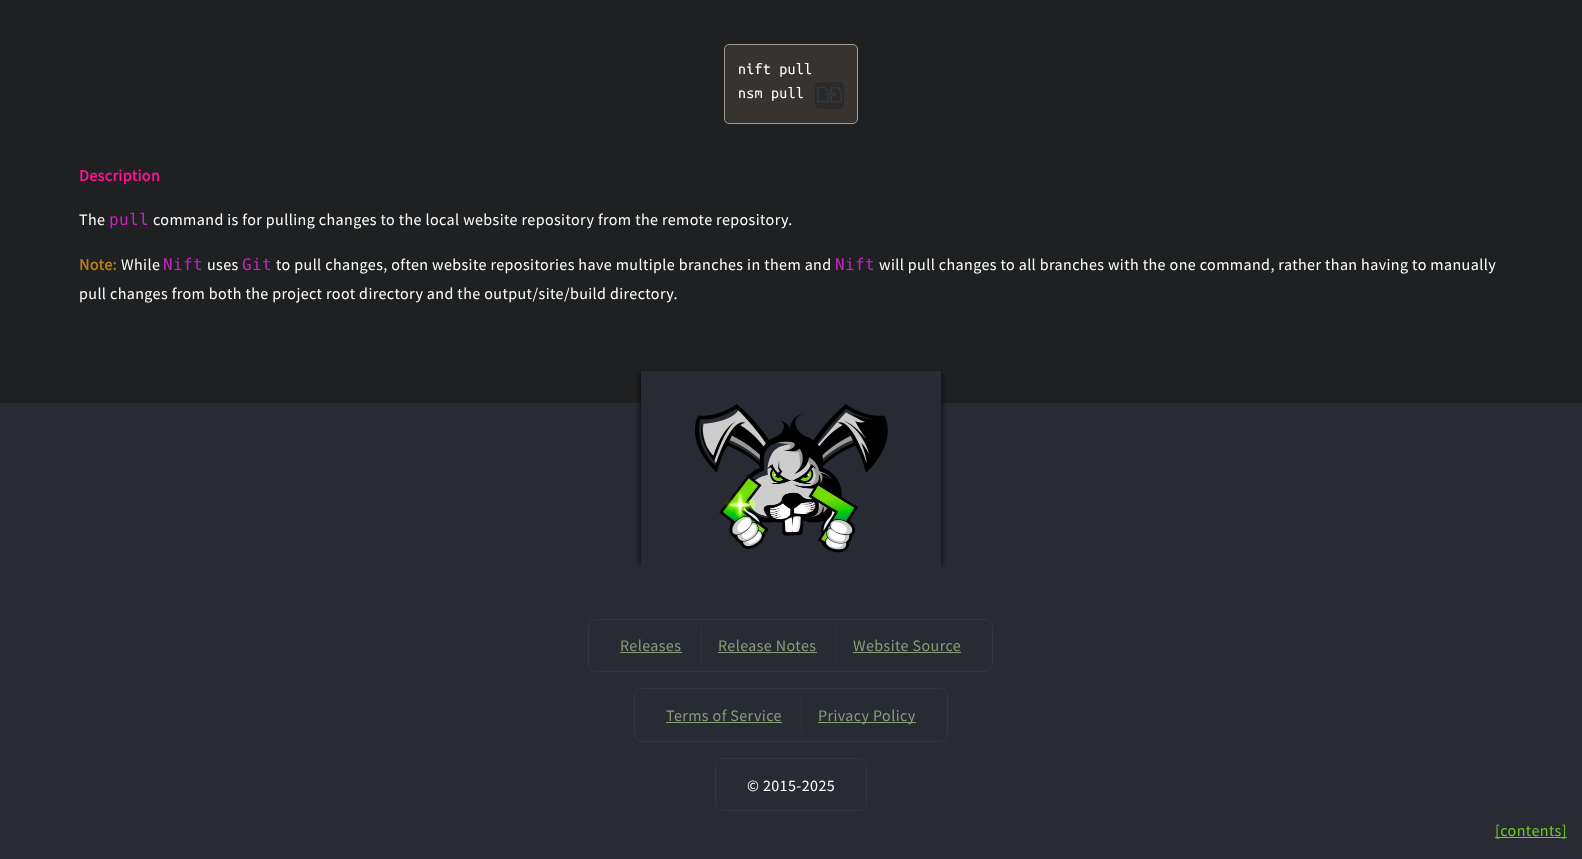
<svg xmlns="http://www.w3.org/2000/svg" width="1582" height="859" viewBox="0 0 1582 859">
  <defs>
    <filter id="blur1" x="-50%" y="-200%" width="200%" height="500%"><feGaussianBlur stdDeviation="2.5"/></filter>
  </defs>
  <rect width="100%" height="100%" fill="#1f2021"/>
  <rect x="724.5" y="44.5" width="133" height="79" rx="4.5" fill="#363331" stroke="#a39e8e"/>
  <text x="738" y="74" font-family="Ubuntu Mono" font-size="16" letter-spacing="0.25" fill="#ffffff">nift pull</text>
  <text x="738" y="98" font-family="Ubuntu Mono" font-size="16" letter-spacing="0.25" fill="#ffffff">nsm pull</text>
  <rect x="815" y="82" width="29" height="27" rx="5" fill="#2b2a29"/>
  <image x="817" y="86" width="25" height="17" href="img1.png"/>
  <text x="79" y="181" font-family="Source Sans Pro" font-size="16" font-weight="bold" letter-spacing="0.4" fill="#ff1493">Description</text>
  <text x="79" y="225" font-family="Source Sans Pro" font-size="16" letter-spacing="0.4" fill="#ffffff">The</text>
  <text x="109" y="225" font-family="DejaVu Sans Mono" font-size="16" letter-spacing="0.4" fill="#c922c9">pull</text>
  <text x="153" y="225" font-family="Source Sans Pro" font-size="16" letter-spacing="0.4" fill="#ffffff">command is for pulling changes to the local website repository from the remote repository.</text>
  <text x="79" y="270" font-family="Source Sans Pro" font-size="16" font-weight="bold" letter-spacing="0.4" fill="#ba7e16">Note:</text>
  <text x="121" y="270" font-family="Source Sans Pro" font-size="16" letter-spacing="0.4" fill="#ffffff">While</text>
  <text x="163" y="270" font-family="DejaVu Sans Mono" font-size="16" letter-spacing="0.4" fill="#c922c9">Nift</text>
  <text x="207" y="270" font-family="Source Sans Pro" font-size="16" letter-spacing="0.4" fill="#ffffff">uses</text>
  <text x="242" y="270" font-family="DejaVu Sans Mono" font-size="16" letter-spacing="0.4" fill="#c922c9">Git</text>
  <text x="276" y="270" font-family="Source Sans Pro" font-size="16" letter-spacing="0.4" fill="#ffffff">to pull changes, often website repositories have multiple branches in them and</text>
  <text x="835" y="270" font-family="DejaVu Sans Mono" font-size="16" letter-spacing="0.4" fill="#c922c9">Nift</text>
  <text x="879" y="270" font-family="Source Sans Pro" font-size="16" letter-spacing="0.4" fill="#ffffff">will pull changes to all branches with the one command, rather than having to manually</text>
  <text x="79" y="299" font-family="Source Sans Pro" font-size="16" letter-spacing="0.4" fill="#ffffff">pull changes from both the project root directory and the output/site/build directory.</text>
  <rect x="0" y="403" width="1582" height="456" fill="#282b34"/>
  <rect x="1495" y="837" width="72" height="1" fill="#72c920"/>
  <text x="1495" y="836" font-family="Source Sans Pro" font-size="16" letter-spacing="0.4" fill="#72c920">[contents]</text>
  <rect x="653" y="373" width="290" height="192" fill="#000000" fill-opacity="0.5" filter="url(#blur1)"/>
  <rect x="639" y="373" width="290" height="192" fill="#000000" fill-opacity="0.5" filter="url(#blur1)"/>
  <rect x="641" y="371" width="300" height="198" fill="#282b34"/>
  <image x="695" y="404" width="193" height="149" href="img2.png"/>
  <rect x="588.5" y="619.5" width="404" height="52" rx="7.5" fill="none" stroke="#33363e"/>
  <text x="620" y="651" font-family="Source Sans Pro" font-size="16" letter-spacing="0.4" fill="#889c76">Releases</text>
  <rect x="620" y="652" width="62" height="1" fill="#889c76"/>
  <rect x="701" y="627" width="1" height="37" fill="#333333"/>
  <text x="718" y="651" font-family="Source Sans Pro" font-size="16" letter-spacing="0.4" fill="#889c76">Release Notes</text>
  <rect x="718" y="652" width="99" height="1" fill="#889c76"/>
  <rect x="836" y="627" width="1" height="37" fill="#333333"/>
  <text x="853" y="651" font-family="Source Sans Pro" font-size="16" letter-spacing="0.4" fill="#889c76">Website Source</text>
  <rect x="853" y="652" width="108" height="1" fill="#889c76"/>
  <rect x="634.5" y="688.5" width="313" height="53" rx="7.5" fill="none" stroke="#33363e"/>
  <text x="666" y="721" font-family="Source Sans Pro" font-size="16" letter-spacing="0.4" fill="#889c76">Terms of Service</text>
  <rect x="666" y="722" width="116" height="1" fill="#889c76"/>
  <rect x="801" y="696" width="1" height="38" fill="#333333"/>
  <rect x="818" y="722" width="98" height="1" fill="#889c76"/>
  <text x="818" y="721" font-family="Source Sans Pro" font-size="16" letter-spacing="0.4" fill="#889c76">Privacy Policy</text>
  <rect x="715.5" y="758.5" width="151" height="52" rx="7.5" fill="none" stroke="#33363e"/>
  <text x="747" y="791" font-family="Source Sans Pro" font-size="16" letter-spacing="0.4" fill="#ffffff">© 2015-2025</text>
</svg>
